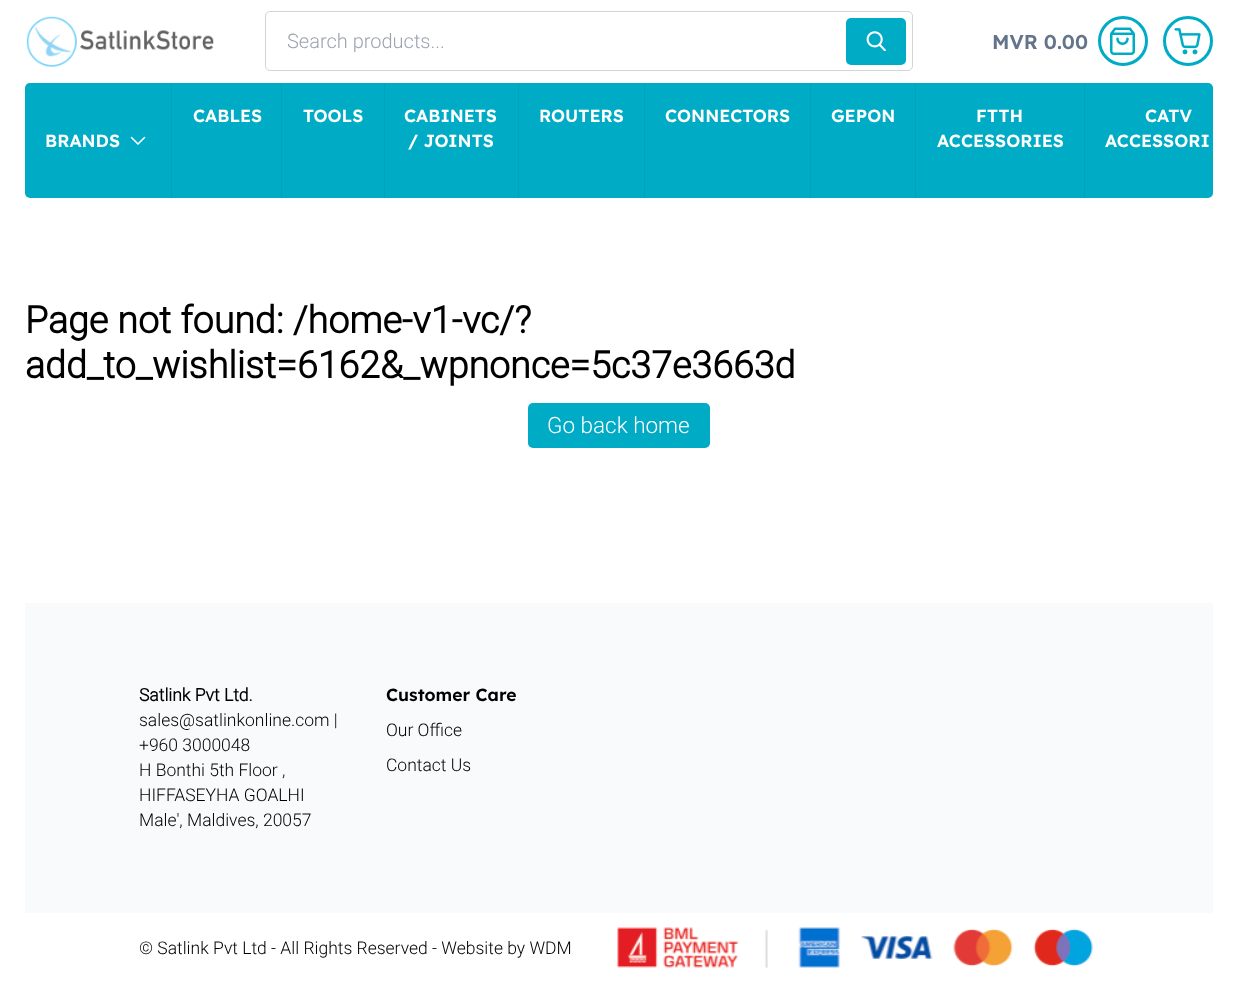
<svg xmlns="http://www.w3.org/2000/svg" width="1237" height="982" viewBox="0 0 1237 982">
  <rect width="100%" height="100%" fill="#ffffff"/>
  <image x="26" y="16" width="188" height="51" href="img1.png"/>
  <rect x="265.5" y="11.5" width="647" height="59" rx="4.5" fill="none" stroke="#d1d5db"/>
  <text x="287" y="48" font-family="Roboto" font-size="20" font-weight="300" fill="#9ca3af">Search products...</text>
  <rect x="846" y="18" width="60" height="47" rx="5" fill="#00abc5"/>
  <image x="866" y="31" width="20" height="20" href="img2.png"/>
  <text x="992" y="49" font-family="Lexend" font-size="20" font-weight="600" fill="#64748b">MVR 0.00</text>
  <circle cx="1123" cy="41" r="23.5" fill="none" stroke="#00abc5" stroke-width="3"/>
  <image x="1110" y="27" width="25" height="28" href="img3.png"/>
  <circle cx="1188" cy="41" r="23.5" fill="none" stroke="#00abc5" stroke-width="3"/>
  <image x="1174" y="28" width="27" height="27" href="img4.png"/>
  <rect x="25" y="83" width="1188" height="115" rx="5" fill="#00abc5"/>
  <rect x="171" y="83" width="1" height="115" fill="#00a2bb"/>
  <text x="45" y="147" font-family="Lexend" font-size="17.5" font-weight="600" fill="#ffffff">BRANDS</text>
  <path d="M131.5 137.5L138 144L144.5 137.5" fill="none" stroke="#ffffff" stroke-width="1.6" stroke-linecap="round" stroke-linejoin="round"/>
  <rect x="281" y="83" width="1" height="115" fill="#00a2bb"/>
  <text x="193" y="122" font-family="Lexend" font-size="17.5" font-weight="600" fill="#ffffff">CABLES</text>
  <rect x="384" y="83" width="1" height="115" fill="#00a2bb"/>
  <text x="303" y="122" font-family="Lexend" font-size="17.5" font-weight="600" fill="#ffffff">TOOLS</text>
  <rect x="518" y="83" width="1" height="115" fill="#00a2bb"/>
  <text x="404" y="122" font-family="Lexend" font-size="17.5" font-weight="600" fill="#ffffff">CABINETS</text>
  <text x="408" y="147" font-family="Lexend" font-size="17.5" font-weight="600" fill="#ffffff">/ JOINTS</text>
  <rect x="644" y="83" width="1" height="115" fill="#00a2bb"/>
  <text x="539" y="122" font-family="Lexend" font-size="17.5" font-weight="600" fill="#ffffff">ROUTERS</text>
  <rect x="810" y="83" width="1" height="115" fill="#00a2bb"/>
  <text x="665" y="122" font-family="Lexend" font-size="17.5" font-weight="600" fill="#ffffff">CONNECTORS</text>
  <rect x="915" y="83" width="1" height="115" fill="#00a2bb"/>
  <text x="831" y="122" font-family="Lexend" font-size="17.5" font-weight="600" fill="#ffffff">GEPON</text>
  <rect x="1084" y="83" width="1" height="115" fill="#00a2bb"/>
  <text x="976" y="122" font-family="Lexend" font-size="17.5" font-weight="600" fill="#ffffff">FTTH</text>
  <text x="937" y="147" font-family="Lexend" font-size="17.5" font-weight="600" fill="#ffffff">ACCESSORIES</text>
  <text x="1145" y="122" font-family="Lexend" font-size="17.5" font-weight="600" fill="#ffffff">CATV</text>
  <text x="1105" y="147" font-family="Lexend" font-size="17.5" font-weight="600" fill="#ffffff">ACCESSORI</text>
  <text x="25" y="333" font-family="Roboto" font-size="37.5" font-weight="bold" fill="#000000">Page not found: /home-v1-vc/?</text>
  <text x="25" y="378" font-family="Roboto" font-size="37.5" font-weight="bold" fill="#000000">add_to_wishlist=6162&amp;_wpnonce=5c37e3663d</text>
  <rect x="528" y="403" width="182" height="45" rx="5" fill="#00abc5"/>
  <text x="547" y="433" font-family="Roboto" font-size="22.5" font-weight="300" fill="#ffffff">Go back home</text>
  <rect x="25" y="603" width="1188" height="310" fill="#f9fafb"/>
  <text x="139" y="701" font-family="Roboto" font-size="17.5" font-weight="bold" fill="#000000">Satlink Pvt Ltd.</text>
  <text x="139" y="726" font-family="Roboto" font-size="17.5" font-weight="300" fill="#000000">sales@satlinkonline.com |</text>
  <text x="139" y="751" font-family="Roboto" font-size="17.5" font-weight="300" fill="#000000">+960 3000048</text>
  <text x="139" y="776" font-family="Roboto" font-size="17.5" font-weight="300" fill="#000000">H Bonthi 5th Floor ,</text>
  <text x="139" y="801" font-family="Roboto" font-size="17.5" font-weight="300" fill="#000000">HIFFASEYHA GOALHI</text>
  <text x="139" y="826" font-family="Roboto" font-size="17.5" font-weight="300" fill="#000000">Male', Maldives, 20057</text>
  <text x="386" y="701" font-family="Lexend" font-size="17.5" font-weight="600" fill="#000000">Customer Care</text>
  <text x="386" y="736" font-family="Roboto" font-size="17.5" font-weight="300" fill="#000000">Our Office</text>
  <text x="386" y="771" font-family="Roboto" font-size="17.5" font-weight="300" fill="#000000">Contact Us</text>
  <text x="139" y="954" font-family="Roboto" font-size="17.5" font-weight="300" fill="#000000">© Satlink Pvt Ltd - All Rights Reserved - Website by WDM</text>
  <image x="617" y="927" width="476" height="42" href="img5.png"/>
</svg>
